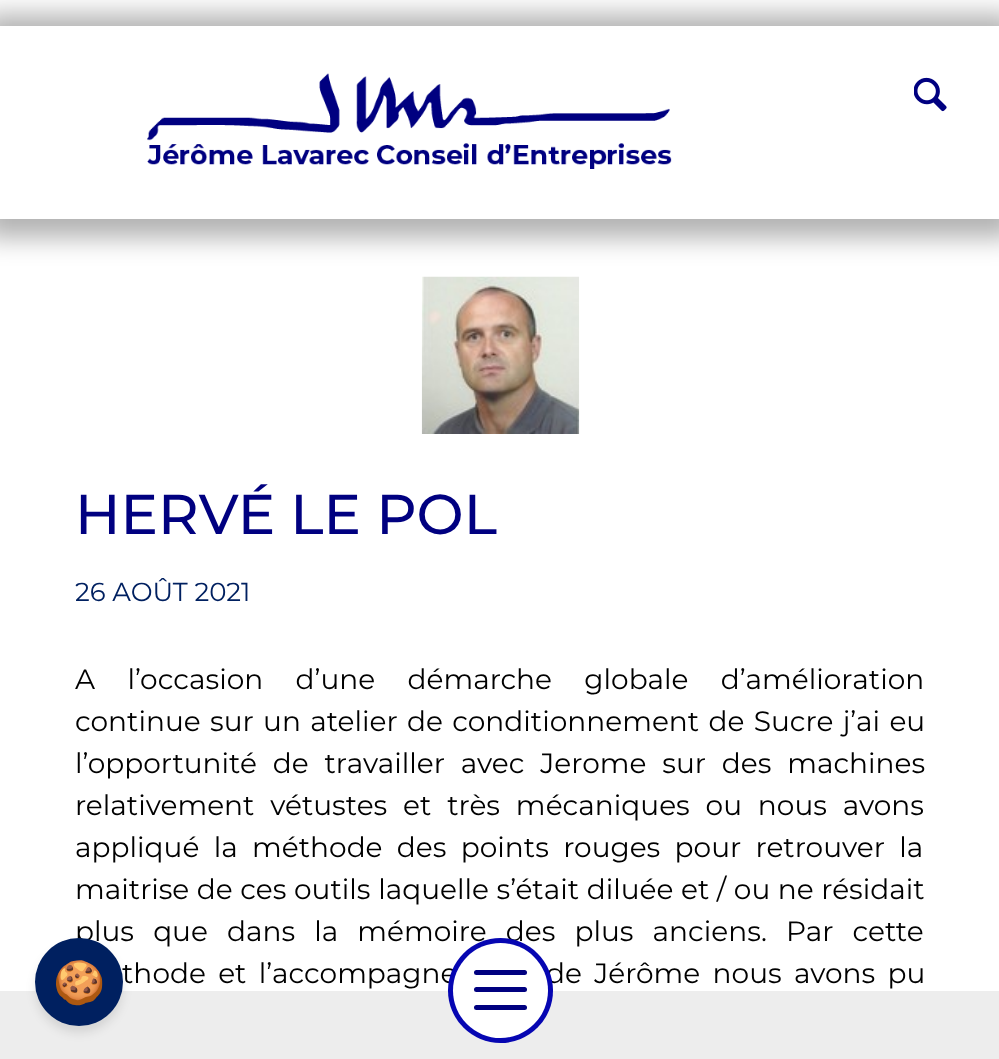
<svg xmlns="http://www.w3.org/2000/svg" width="999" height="1059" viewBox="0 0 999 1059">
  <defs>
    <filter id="blur1" x="-50%" y="-200%" width="200%" height="500%"><feGaussianBlur stdDeviation="13"/></filter>
    <filter id="blur2" x="-50%" y="-200%" width="200%" height="500%"><feGaussianBlur stdDeviation="5"/></filter>
  </defs>
  <rect width="100%" height="100%" fill="#ffffff"/>
  <image x="421" y="276" width="159" height="158" href="img3.png"/>
  <rect x="-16" y="14" width="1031" height="224" fill="#000000" fill-opacity="0.3" filter="url(#blur1)"/>
  <rect x="0" y="26" width="999" height="193" fill="#ffffff"/>
  <image x="147" y="73" width="525" height="96" href="img1.png"/>
  <image x="914" y="77" width="33" height="35" href="img2.png"/>
  <rect x="0" y="991" width="999" height="68" fill="#ededed"/>
  <text x="75" y="941" word-spacing="11.75" font-family="Montserrat" font-size="28" fill="#000000">plus que dans la mémoire des plus anciens. Par cette</text>
  <text x="122" y="983" word-spacing="5" font-family="Montserrat" font-size="28" fill="#000000">thode et l’accompagne</text>
  <text x="546" y="983" word-spacing="5" font-family="Montserrat" font-size="28" fill="#000000">de Jérôme nous avons pu</text>
  <circle cx="500.5" cy="990.5" r="52.5" fill="#0606b2"/>
  <circle cx="500.5" cy="990.5" r="47.5" fill="#ffffff"/>
  <rect x="474" y="987" width="53" height="5" rx="2.5" fill="#000080"/>
  <rect x="474" y="970" width="53" height="5" rx="2.5" fill="#000080"/>
  <rect x="474" y="1005" width="53" height="5" rx="2.5" fill="#000080"/>
  <text x="75" y="534" font-family="Montserrat" font-size="56" font-weight="500" fill="#000080">HERVÉ LE POL</text>
  <text x="75" y="601" font-family="Montserrat" font-size="26" fill="#002060">26 AOÛT 2021</text>
  <text x="75" y="689" word-spacing="25" font-family="Montserrat" font-size="28" fill="#000000">A l’occasion d’une démarche globale d’amélioration</text>
  <text x="75" y="731" word-spacing="2" font-family="Montserrat" font-size="28" fill="#000000">continue sur un atelier de conditionnement de Sucre j’ai eu</text>
  <text x="75" y="773" word-spacing="8.5" font-family="Montserrat" font-size="28" fill="#000000">l’opportunité de travailler avec Jerome sur des machines</text>
  <text x="75" y="815" word-spacing="8.5" font-family="Montserrat" font-size="28" fill="#000000">relativement vétustes et très mécaniques ou nous avons</text>
  <text x="75" y="857" word-spacing="7" font-family="Montserrat" font-size="28" fill="#000000">appliqué la méthode des points rouges pour retrouver la</text>
  <text x="75" y="899" word-spacing="0.25" font-family="Montserrat" font-size="28" fill="#000000">maitrise de ces outils laquelle s’était diluée et / ou ne résidait</text>
  <rect x="35" y="945" width="88" height="88" rx="44" fill="#000000" fill-opacity="0.1" filter="url(#blur2)"/>
  <circle cx="79" cy="982" r="44" fill="#002060"/>
  <text x="53" y="997" font-family="Noto Color Emoji" font-size="42" fill="#ffffff">🍪</text>
</svg>
